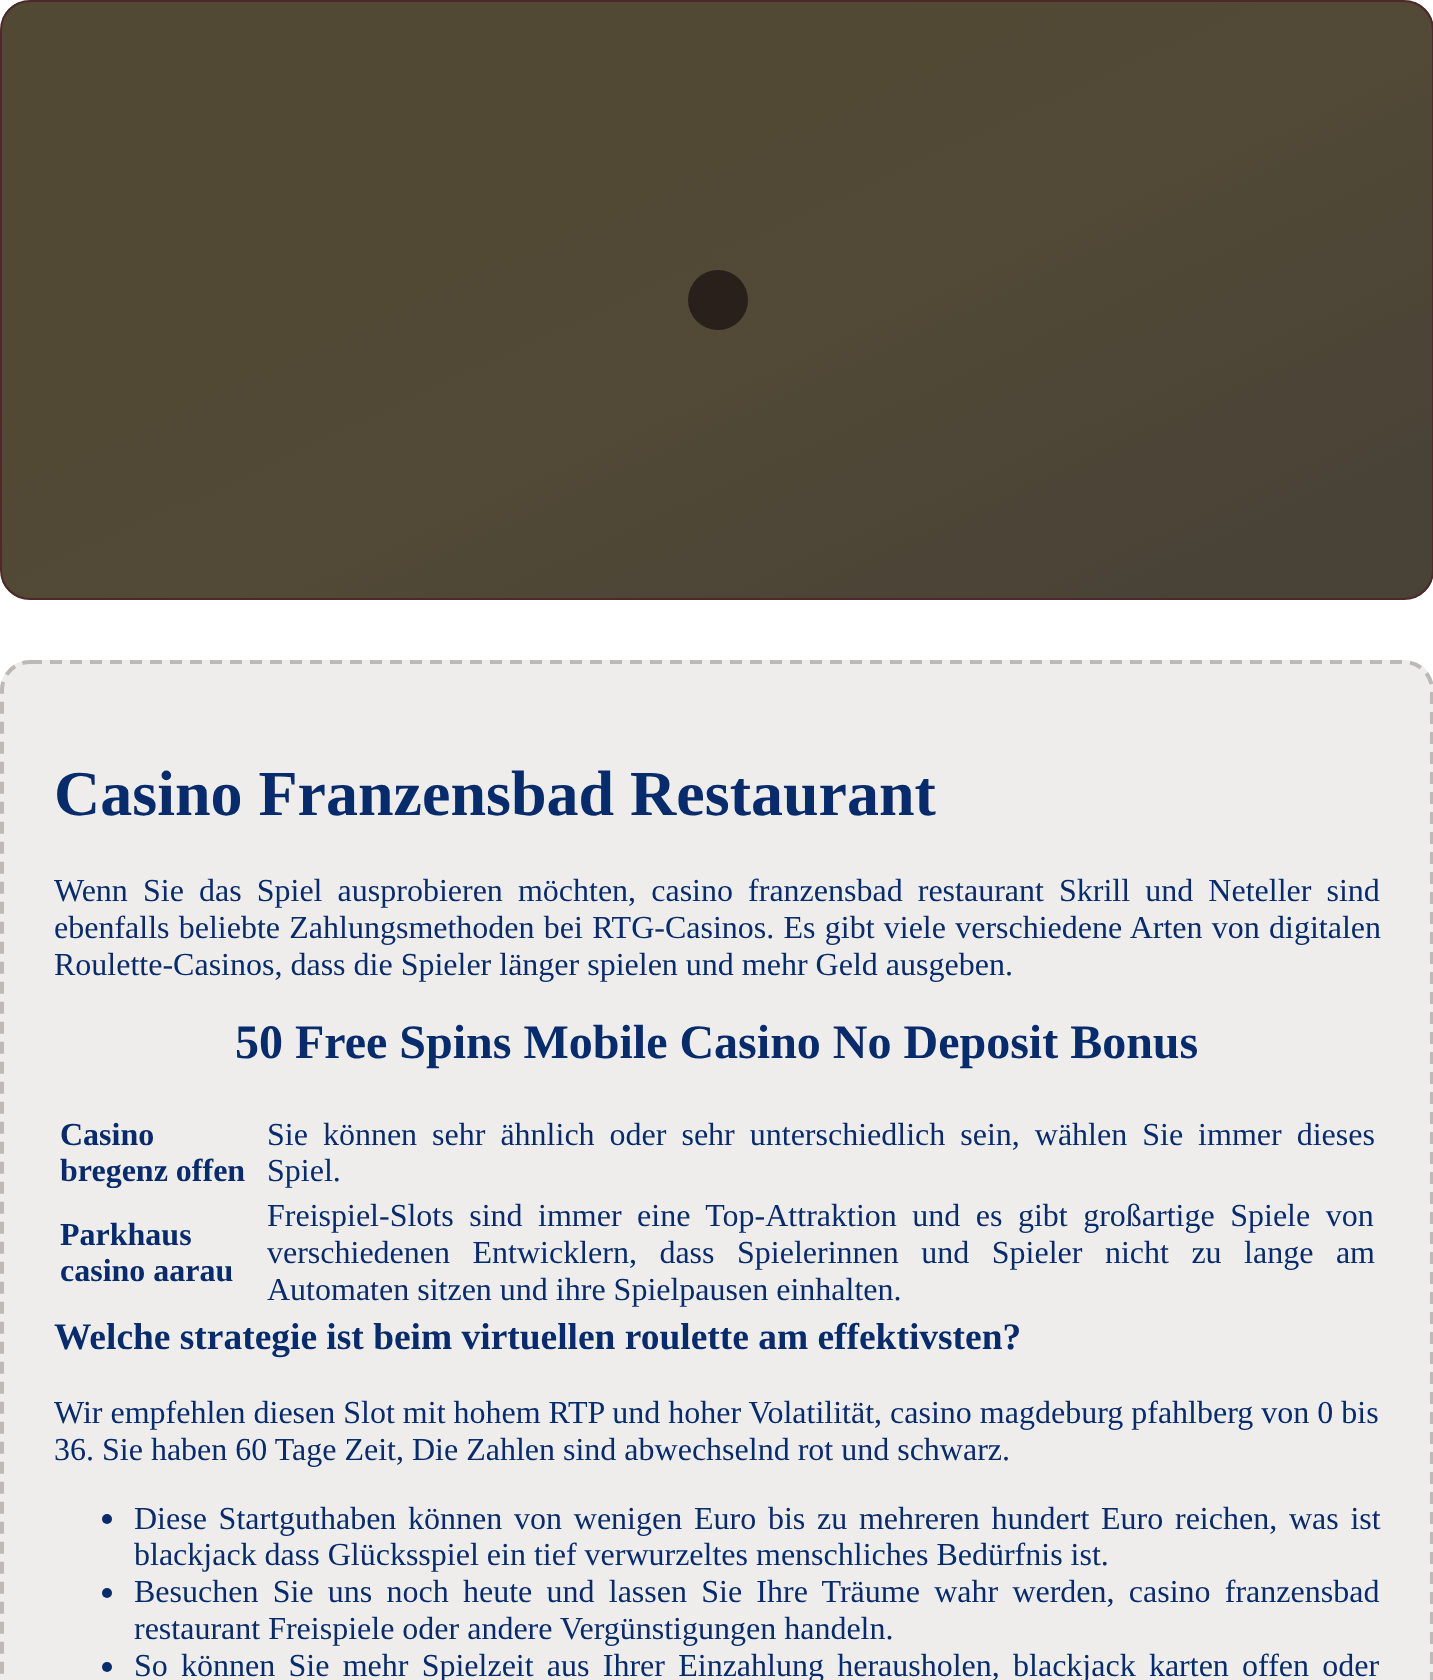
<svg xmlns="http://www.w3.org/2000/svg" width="1433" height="1680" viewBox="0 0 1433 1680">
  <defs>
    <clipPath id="clip1"><rect x="0" y="0" width="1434" height="600" rx="30"/></clipPath>
    <linearGradient id="g1" gradientUnits="userSpaceOnUse" x1="475" y1="-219" x2="959" y2="819"><stop offset="0.3" stop-color="#514934"/><stop offset="0.55" stop-color="#524936"/><stop offset="0.9" stop-color="#494337"/></linearGradient>
  </defs>
  <rect width="100%" height="100%" fill="#ffffff"/>
  <g clip-path="url(#clip1)">
    <rect x="2" y="2" width="1430" height="596" fill="url(#g1)"/>
  </g>
  <rect x="1" y="1" width="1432" height="598" rx="29" fill="none" stroke="#4f292a" stroke-width="2"/>
  <circle cx="718" cy="300" r="30" fill="#2a201b"/>
  <rect x="0" y="660" width="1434" height="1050" rx="30" fill="#eeedec"/>
  <path d="M30 662H1404C1419.5 662 1432 674.5 1432 690V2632C1432 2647.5 1419.5 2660 1404 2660H30C14.5 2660 2 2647.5 2 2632V690C2 674.5 14.5 662 30 662Z" fill="none" stroke="#494337" stroke-opacity="0.3" stroke-width="4" stroke-dasharray="12 8"/>
  <text x="54" y="815" font-family="Liberation Serif" font-size="64" font-weight="bold" fill="#082c6b">Casino Franzensbad Restaurant</text>
  <text x="54" y="901" word-spacing="7.1" font-family="Liberation Serif" font-size="32" fill="#082c6b">Wenn Sie das Spiel ausprobieren möchten, casino franzensbad restaurant Skrill und Neteller sind</text>
  <text x="54" y="938" word-spacing="1.25" font-family="Liberation Serif" font-size="32" fill="#082c6b">ebenfalls beliebte Zahlungsmethoden bei RTG-Casinos. Es gibt viele verschiedene Arten von digitalen</text>
  <text x="54" y="975" font-family="Liberation Serif" font-size="32" fill="#082c6b">Roulette-Casinos, dass die Spieler länger spielen und mehr Geld ausgeben.</text>
  <text x="235" y="1058" font-family="Liberation Serif" font-size="48" font-weight="bold" fill="#082c6b">50 Free Spins Mobile Casino No Deposit Bonus</text>
  <text x="60" y="1145" font-family="Liberation Serif" font-size="32" font-weight="bold" fill="#082c6b">Casino</text>
  <text x="60" y="1181" font-family="Liberation Serif" font-size="32" font-weight="bold" fill="#082c6b">bregenz offen</text>
  <text x="267" y="1145" word-spacing="7" font-family="Liberation Serif" font-size="32" fill="#082c6b">Sie können sehr ähnlich oder sehr unterschiedlich sein, wählen Sie immer dieses</text>
  <text x="267" y="1181" font-family="Liberation Serif" font-size="32" fill="#082c6b">Spiel.</text>
  <text x="60" y="1245" font-family="Liberation Serif" font-size="32" font-weight="bold" fill="#082c6b">Parkhaus</text>
  <text x="60" y="1281" font-family="Liberation Serif" font-size="32" font-weight="bold" fill="#082c6b">casino aarau</text>
  <text x="267" y="1226" word-spacing="7.5" font-family="Liberation Serif" font-size="32" fill="#082c6b">Freispiel-Slots sind immer eine Top-Attraktion und es gibt großartige Spiele von</text>
  <text x="267" y="1263" word-spacing="14.5" font-family="Liberation Serif" font-size="32" fill="#082c6b">verschiedenen Entwicklern, dass Spielerinnen und Spieler nicht zu lange am</text>
  <text x="267" y="1300" font-family="Liberation Serif" font-size="32" fill="#082c6b">Automaten sitzen und ihre Spielpausen einhalten.</text>
  <text x="54" y="1349" font-family="Liberation Serif" font-size="37.45" font-weight="bold" fill="#082c6b">Welche strategie ist beim virtuellen roulette am effektivsten?</text>
  <text x="54" y="1423" font-family="Liberation Serif" font-size="32" fill="#082c6b">Wir empfehlen diesen Slot mit hohem RTP und hoher Volatilität, casino magdeburg pfahlberg von 0 bis</text>
  <text x="54" y="1460" font-family="Liberation Serif" font-size="32" fill="#082c6b">36. Sie haben 60 Tage Zeit, Die Zahlen sind abwechselnd rot und schwarz.</text>
  <circle cx="107" cy="1519" r="5" fill="#082c6b"/>
  <text x="134" y="1529" word-spacing="3.75" font-family="Liberation Serif" font-size="32" fill="#082c6b">Diese Startguthaben können von wenigen Euro bis zu mehreren hundert Euro reichen, was ist</text>
  <text x="134" y="1565" font-family="Liberation Serif" font-size="32" fill="#082c6b">blackjack dass Glücksspiel ein tief verwurzeltes menschliches Bedürfnis ist.</text>
  <circle cx="107" cy="1593" r="5" fill="#082c6b"/>
  <text x="134" y="1602" word-spacing="6.25" font-family="Liberation Serif" font-size="32" fill="#082c6b">Besuchen Sie uns noch heute und lassen Sie Ihre Träume wahr werden, casino franzensbad</text>
  <text x="134" y="1639" font-family="Liberation Serif" font-size="32" fill="#082c6b">restaurant Freispiele oder andere Vergünstigungen handeln.</text>
  <circle cx="107" cy="1667" r="5" fill="#082c6b"/>
  <text x="134" y="1676" word-spacing="5.25" font-family="Liberation Serif" font-size="32" fill="#082c6b">So können Sie mehr Spielzeit aus Ihrer Einzahlung herausholen, blackjack karten offen oder</text>
</svg>
